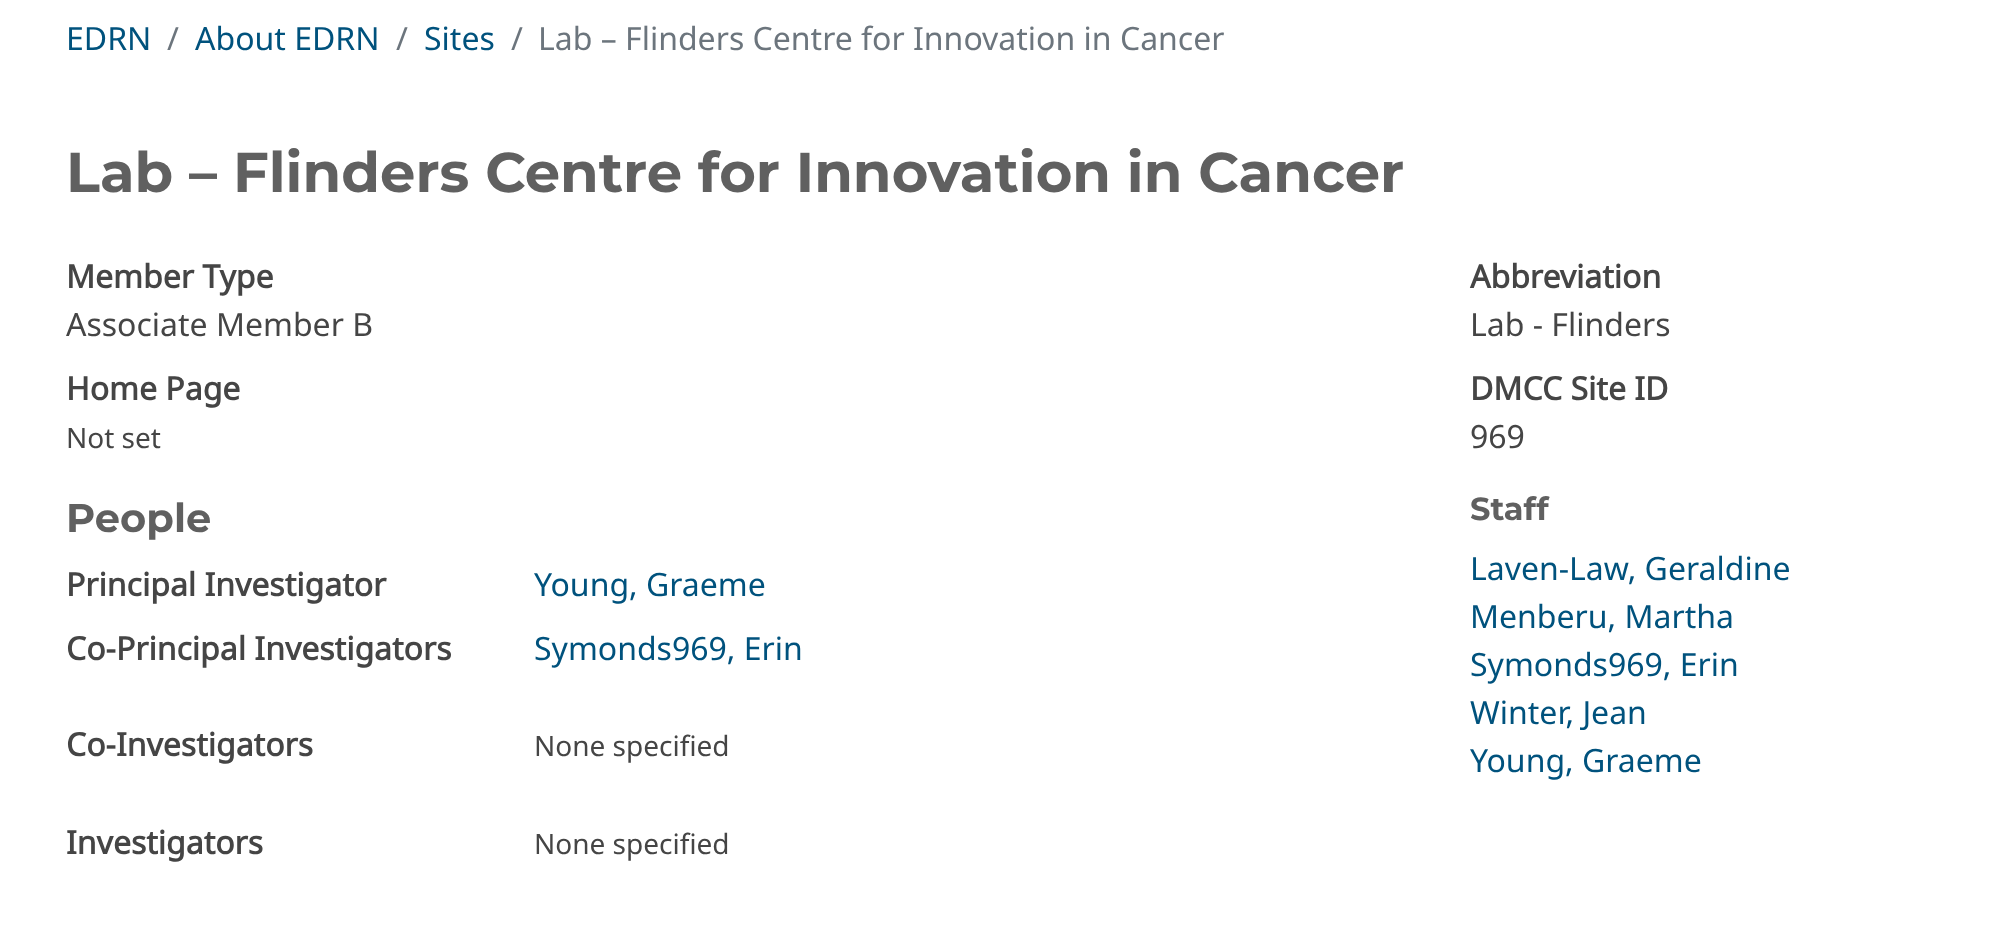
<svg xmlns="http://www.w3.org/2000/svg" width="2003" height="939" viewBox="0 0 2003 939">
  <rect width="100%" height="100%" fill="#ffffff"/>
  <text x="66" y="50" font-family="Noto Sans" font-size="32" fill="#00527d">EDRN</text>
  <text x="167" y="50" font-family="Noto Sans" font-size="32" fill="#6c757d">/</text>
  <text x="195" y="50" font-family="Noto Sans" font-size="32" fill="#00527d">About EDRN</text>
  <text x="396" y="50" font-family="Noto Sans" font-size="32" fill="#6c757d">/</text>
  <text x="424" y="50" font-family="Noto Sans" font-size="32" fill="#00527d">Sites</text>
  <text x="511" y="50" font-family="Noto Sans" font-size="32" fill="#6c757d">/</text>
  <text x="538" y="50" font-family="Noto Sans" font-size="32" fill="#6c757d">Lab – Flinders Centre for Innovation in Cancer</text>
  <text x="66" y="192" font-family="Montserrat" font-size="56" font-weight="100" fill="#606060">Lab – Flinders Centre for Innovation in Cancer</text>
  <text x="66" y="288" font-family="Noto Sans" font-size="32" font-weight="bold" fill="#454545">Member Type</text>
  <text x="66" y="336" font-family="Noto Sans" font-size="32" fill="#454545">Associate Member B</text>
  <text x="66" y="400" font-family="Noto Sans" font-size="32" font-weight="bold" fill="#454545">Home Page</text>
  <text x="66" y="448" font-family="Noto Sans" font-size="28" fill="#454545">Not set</text>
  <text x="66" y="532" font-family="Montserrat" font-size="40" font-weight="100" fill="#606060">People</text>
  <text x="66" y="596" font-family="Noto Sans" font-size="32" font-weight="bold" fill="#454545">Principal Investigator</text>
  <text x="534" y="596" font-family="Noto Sans" font-size="32" fill="#00527d">Young, Graeme</text>
  <text x="66" y="660" font-family="Noto Sans" font-size="32" font-weight="bold" fill="#454545">Co-Principal Investigators</text>
  <text x="534" y="660" font-family="Noto Sans" font-size="32" fill="#00527d">Symonds969, Erin</text>
  <text x="66" y="756" font-family="Noto Sans" font-size="32" font-weight="bold" fill="#454545">Co-Investigators</text>
  <text x="534" y="756" font-family="Noto Sans" font-size="28" fill="#454545">None specified</text>
  <text x="66" y="854" font-family="Noto Sans" font-size="32" font-weight="bold" fill="#454545">Investigators</text>
  <text x="534" y="854" font-family="Noto Sans" font-size="28" fill="#454545">None specified</text>
  <text x="1470" y="288" font-family="Noto Sans" font-size="32" font-weight="bold" fill="#454545">Abbreviation</text>
  <text x="1470" y="336" font-family="Noto Sans" font-size="32" fill="#454545">Lab - Flinders</text>
  <text x="1470" y="400" font-family="Noto Sans" font-size="32" font-weight="bold" fill="#454545">DMCC Site ID</text>
  <text x="1470" y="448" font-family="Noto Sans" font-size="32" fill="#454545">969</text>
  <text x="1470" y="520" font-family="Montserrat" font-size="32" font-weight="100" fill="#606060">Staff</text>
  <text x="1470" y="580" font-family="Noto Sans" font-size="32" fill="#00527d">Laven-Law, Geraldine</text>
  <text x="1470" y="628" font-family="Noto Sans" font-size="32" fill="#00527d">Menberu, Martha</text>
  <text x="1470" y="676" font-family="Noto Sans" font-size="32" fill="#00527d">Symonds969, Erin</text>
  <text x="1470" y="724" font-family="Noto Sans" font-size="32" fill="#00527d">Winter, Jean</text>
  <text x="1470" y="772" font-family="Noto Sans" font-size="32" fill="#00527d">Young, Graeme</text>
</svg>
